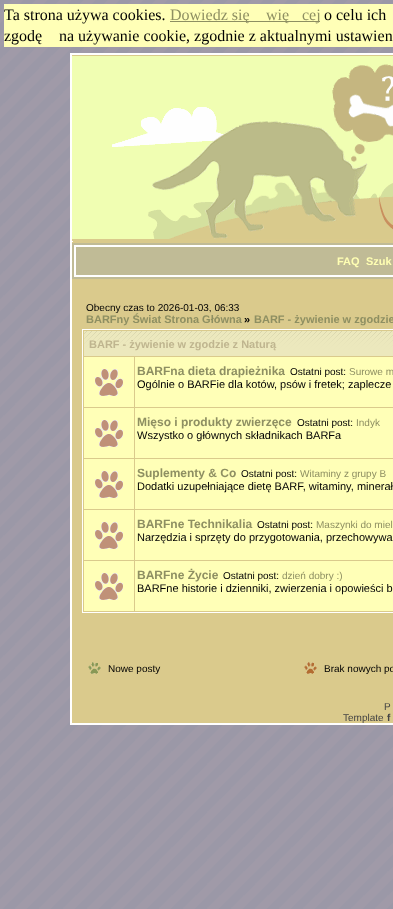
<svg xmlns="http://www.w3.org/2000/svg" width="393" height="909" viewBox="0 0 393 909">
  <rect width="100%" height="100%" fill="#ffffff"/>
  <image x="0" y="0" width="393" height="909" href="img1.png"/>
  <rect x="4" y="4" width="389" height="43" fill="#ffffb7"/>
  <text x="4" y="20" font-family="Liberation Serif" font-size="16" fill="#000000">Ta strona używa cookies.</text>
  <rect x="170" y="21" width="150" height="1" fill="#8e8f62"/>
  <text x="170" y="20" font-family="Liberation Serif" font-size="16" fill="#8e8f62">Dowiedz się</text>
  <text x="266" y="20" font-family="Liberation Serif" font-size="16" fill="#8e8f62">wię</text>
  <text x="302" y="20" font-family="Liberation Serif" font-size="16" fill="#8e8f62">cej</text>
  <text x="324" y="20" font-family="Liberation Serif" font-size="16" fill="#000000">o celu ich</text>
  <text x="4" y="41" font-family="Liberation Serif" font-size="16" fill="#000000">zgodę</text>
  <text x="59" y="41" font-family="Liberation Serif" font-size="16" fill="#000000">na używanie cookie, zgodnie z aktualnymi ustawien</text>
  <rect x="71" y="54" width="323" height="670" fill="#daca8c" stroke="#ffffff" stroke-width="2"/>
  <image x="72" y="56" width="321" height="183" href="img2.png"/>
  <rect x="72" y="241" width="1" height="1" fill="#ffffff"/>
  <rect x="72" y="243" width="321" height="36" fill="#c0bb96"/>
  <rect x="75" y="246" width="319" height="30" fill="none" stroke="#ffffff" stroke-width="2"/>
  <text x="337" y="265" font-family="Liberation Sans" font-size="11" font-weight="bold" fill="#ffffb3">FAQ</text>
  <text x="366" y="265" font-family="Liberation Sans" font-size="11" font-weight="bold" fill="#ffffb3">Szuk</text>
  <text x="86" y="311" font-family="Liberation Sans" font-size="10" fill="#000000">Obecny czas to 2026-01-03, 06:33</text>
  <text x="86" y="323" font-family="Liberation Sans" font-size="11" font-weight="bold" fill="#8e8f62">BARFny Świat Strona Główna</text>
  <text x="244" y="323" font-family="Liberation Sans" font-size="11" font-weight="bold" fill="#000000">»</text>
  <text x="254" y="323" font-family="Liberation Sans" font-size="11" font-weight="bold" fill="#8e8f62">BARF - żywienie w zgodzie</text>
  <rect x="82.5" y="329.5" width="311" height="283" fill="none" stroke="#ffffff"/>
  <image x="84" y="331" width="309" height="25" href="img3.png"/>
  <text x="89" y="348" font-family="Liberation Sans" font-size="11" font-weight="bold" fill="#bfb58f">BARF - żywienie w zgodzie z Naturą</text>
  <rect x="84" y="357" width="50" height="50" fill="#ffffb7"/>
  <image x="95" y="369" width="28" height="27" href="img4.png"/>
  <rect x="135" y="357" width="258" height="50" fill="#ffffb7"/>
  <text x="137" y="375" font-family="Liberation Sans" font-size="12" font-weight="bold" fill="#8e8f62">BARFna dieta drapieżnika</text>
  <text x="290" y="375" font-family="Liberation Sans" font-size="10" fill="#000000">Ostatni post:</text>
  <text x="349" y="375" font-family="Liberation Sans" font-size="10" fill="#8e8f62">Surowe m</text>
  <text x="137" y="388" font-family="Liberation Sans" font-size="11" fill="#000000">Ogólnie o BARFie dla kotów, psów i fretek; zaplecze</text>
  <rect x="84" y="408" width="50" height="50" fill="#ffffb7"/>
  <image x="95" y="420" width="28" height="27" href="img4.png"/>
  <rect x="135" y="408" width="258" height="50" fill="#ffffb7"/>
  <text x="137" y="426" font-family="Liberation Sans" font-size="12" font-weight="bold" fill="#8e8f62">Mięso i produkty zwierzęce</text>
  <text x="297" y="426" font-family="Liberation Sans" font-size="10" fill="#000000">Ostatni post:</text>
  <text x="356" y="426" font-family="Liberation Sans" font-size="10" fill="#8e8f62">Indyk</text>
  <text x="137" y="439" font-family="Liberation Sans" font-size="11" fill="#000000">Wszystko o głównych składnikach BARFa</text>
  <rect x="84" y="459" width="50" height="50" fill="#ffffb7"/>
  <image x="95" y="471" width="28" height="27" href="img4.png"/>
  <rect x="135" y="459" width="258" height="50" fill="#ffffb7"/>
  <text x="137" y="477" font-family="Liberation Sans" font-size="12" font-weight="bold" fill="#8e8f62">Suplementy &amp; Co</text>
  <text x="241" y="477" font-family="Liberation Sans" font-size="10" fill="#000000">Ostatni post:</text>
  <text x="300" y="477" font-family="Liberation Sans" font-size="10" fill="#8e8f62">Witaminy z grupy B</text>
  <text x="137" y="490" font-family="Liberation Sans" font-size="11" fill="#000000">Dodatki uzupełniające dietę BARF, witaminy, minerał</text>
  <rect x="84" y="510" width="50" height="50" fill="#ffffb7"/>
  <image x="95" y="522" width="28" height="27" href="img4.png"/>
  <rect x="135" y="510" width="258" height="50" fill="#ffffb7"/>
  <text x="137" y="528" font-family="Liberation Sans" font-size="12" font-weight="bold" fill="#8e8f62">BARFne Technikalia</text>
  <text x="257" y="528" font-family="Liberation Sans" font-size="10" fill="#000000">Ostatni post:</text>
  <text x="316" y="528" font-family="Liberation Sans" font-size="10" fill="#8e8f62">Maszynki do miel</text>
  <text x="137" y="541" font-family="Liberation Sans" font-size="11" fill="#000000">Narzędzia i sprzęty do przygotowania, przechowywa</text>
  <rect x="84" y="561" width="50" height="50" fill="#ffffb7"/>
  <image x="95" y="573" width="28" height="27" href="img4.png"/>
  <rect x="135" y="561" width="258" height="50" fill="#ffffb7"/>
  <text x="137" y="579" font-family="Liberation Sans" font-size="12" font-weight="bold" fill="#8e8f62">BARFne Życie</text>
  <text x="223" y="579" font-family="Liberation Sans" font-size="10" fill="#000000">Ostatni post:</text>
  <text x="282" y="579" font-family="Liberation Sans" font-size="10" fill="#8e8f62">dzień dobry :)</text>
  <text x="137" y="592" font-family="Liberation Sans" font-size="11" fill="#000000">BARFne historie i dzienniki, zwierzenia i opowieści b</text>
  <image x="88" y="662" width="13" height="12" href="img5.png"/>
  <text x="108" y="672" font-family="Liberation Sans" font-size="10" fill="#000000">Nowe posty</text>
  <image x="304" y="662" width="13" height="12" href="img6.png"/>
  <text x="324" y="672" font-family="Liberation Sans" font-size="10" fill="#000000">Brak nowych po</text>
  <text x="384" y="710" font-family="Liberation Sans" font-size="10" fill="#444444">P</text>
  <text x="343" y="721" font-family="Liberation Sans" font-size="10" fill="#444444">Template</text>
  <text x="387" y="721" font-family="Liberation Sans" font-size="10" font-weight="bold" fill="#444444">f</text>
</svg>
